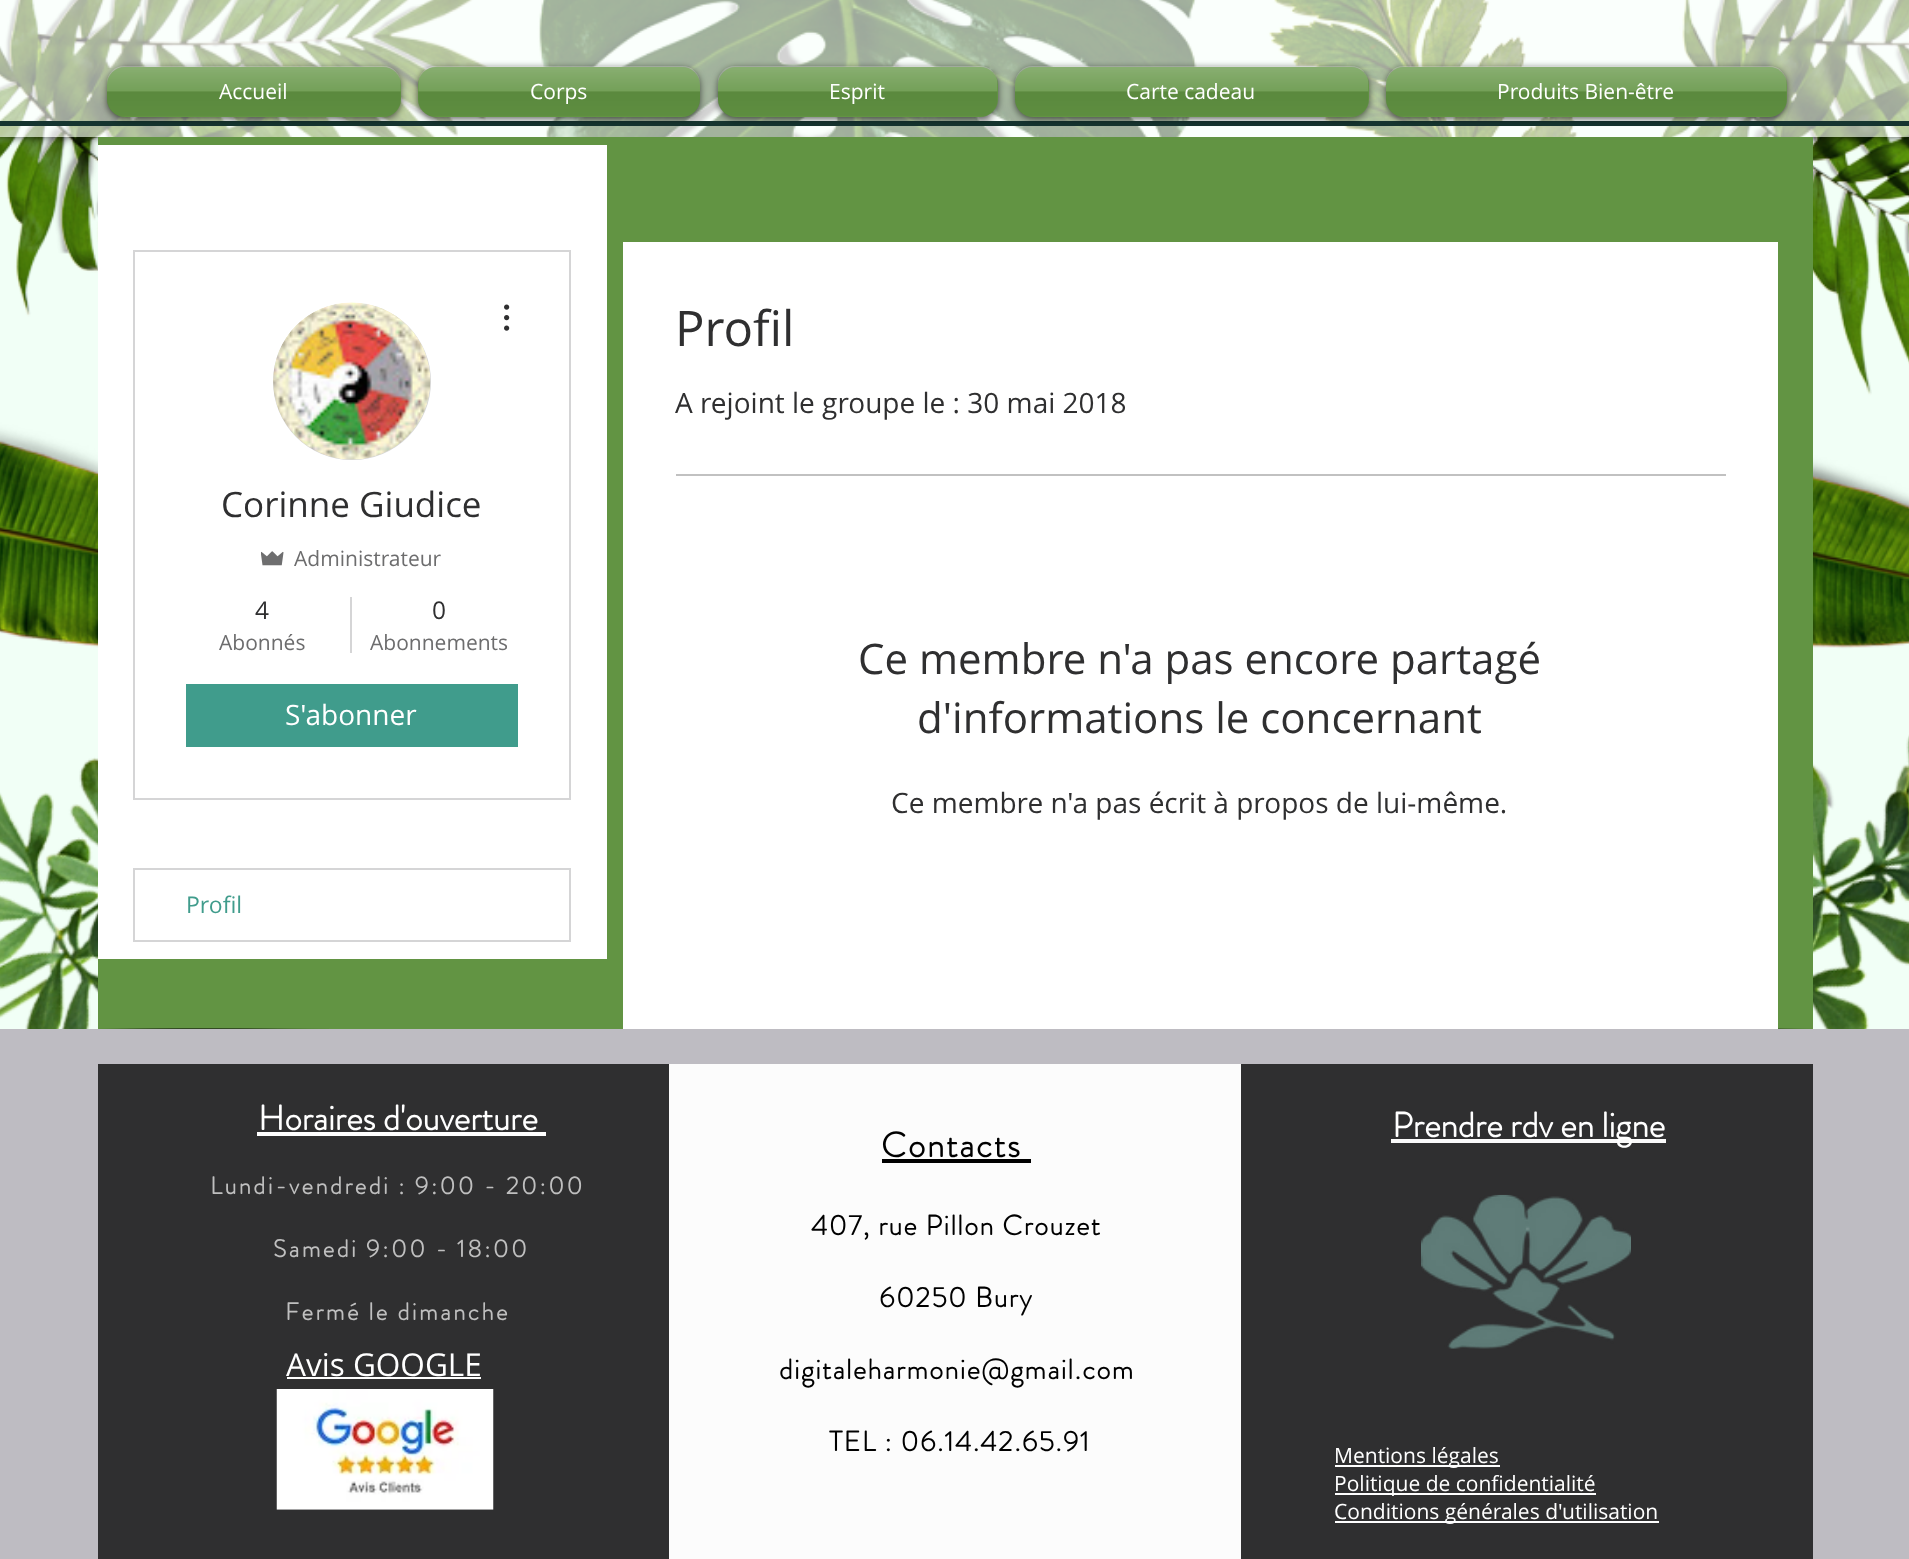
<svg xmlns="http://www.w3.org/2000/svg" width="1909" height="1559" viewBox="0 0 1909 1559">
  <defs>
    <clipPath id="clip1"><path d="M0 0H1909V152H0ZM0-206H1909V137H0Z" clip-rule="evenodd"/></clipPath>
    <filter id="blur1" x="-50%" y="-200%" width="200%" height="500%"><feGaussianBlur stdDeviation="4.5"/></filter>
    <filter id="blur2" x="-50%" y="-200%" width="200%" height="500%"><feGaussianBlur stdDeviation="3.5"/></filter>
  </defs>
  <rect width="100%" height="100%" fill="#f1fff6"/>
  <image x="0" y="0" width="1909" height="1029" href="img1.png"/>
  <g clip-path="url(#clip1)">
    <rect x="0" y="-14" width="1909" height="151" fill="#000000" fill-opacity="0.7" filter="url(#blur1)"/>
  </g>
  <rect x="0" y="0" width="1909" height="137" fill="#ffffff" fill-opacity="0.61"/>
  <rect x="0" y="121" width="1909" height="5" fill="#15342f"/>
  <rect x="107" y="68" width="294" height="51" rx="18" fill="#000000" fill-opacity="0.6" filter="url(#blur2)"/>
  <rect x="107" y="67" width="294" height="50" rx="18" fill="#629443"/>
  <image x="107" y="66" width="294" height="50" href="img2.png"/>
  <text x="219" y="99" font-family="Open Sans" font-size="21" fill="#ffffff">Accueil</text>
  <rect x="418" y="68" width="282" height="51" rx="18" fill="#000000" fill-opacity="0.6" filter="url(#blur2)"/>
  <rect x="418" y="67" width="282" height="50" rx="18" fill="#629443"/>
  <image x="418" y="66" width="282" height="50" href="img3.png"/>
  <text x="530" y="99" font-family="Open Sans" font-size="21" fill="#ffffff">Corps</text>
  <rect x="718" y="68" width="280" height="51" rx="18" fill="#000000" fill-opacity="0.6" filter="url(#blur2)"/>
  <rect x="718" y="67" width="280" height="50" rx="18" fill="#629443"/>
  <image x="717" y="66" width="281" height="50" href="img4.png"/>
  <text x="829" y="99" font-family="Open Sans" font-size="21" fill="#ffffff">Esprit</text>
  <rect x="1015" y="68" width="354" height="51" rx="18" fill="#000000" fill-opacity="0.6" filter="url(#blur2)"/>
  <rect x="1015" y="67" width="354" height="50" rx="18" fill="#629443"/>
  <image x="1015" y="66" width="354" height="50" href="img5.png"/>
  <text x="1126" y="99" font-family="Open Sans" font-size="21" fill="#ffffff">Carte cadeau</text>
  <rect x="1386" y="68" width="401" height="51" rx="18" fill="#000000" fill-opacity="0.6" filter="url(#blur2)"/>
  <rect x="1386" y="67" width="401" height="50" rx="18" fill="#629443"/>
  <image x="1386" y="66" width="401" height="50" href="img6.png"/>
  <text x="1497" y="99" font-family="Open Sans" font-size="21" fill="#ffffff">Produits Bien-être</text>
  <rect x="98" y="137" width="1715" height="892" fill="#629443"/>
  <rect x="98" y="145" width="509" height="814" fill="#ffffff"/>
  <rect x="134" y="251" width="436" height="548" fill="none" stroke="#d5d5d6" stroke-width="2"/>
  <rect x="273" y="303" width="158" height="157" rx="78.5" fill="#d8d8d8"/>
  <image x="273" y="302" width="158" height="158" href="img7.png"/>
  <image x="504" y="304" width="6" height="27" href="img8.png"/>
  <text x="221" y="517" font-family="Open Sans" font-size="35" fill="#2f2f30">Corinne Giudice</text>
  <image x="261" y="551" width="23" height="15" href="img9.png"/>
  <text x="294" y="566" font-family="Open Sans" font-size="21" fill="#6d6d6e">Administrateur</text>
  <text x="255" y="619" font-family="Open Sans" font-size="24.5" fill="#2f2f30">4</text>
  <text x="219" y="650" font-family="Open Sans" font-size="21" fill="#6d6d6e">Abonnés</text>
  <rect x="350" y="597" width="2" height="56" fill="#d5d5d6"/>
  <text x="432" y="619" font-family="Open Sans" font-size="24.5" fill="#2f2f30">0</text>
  <text x="370" y="650" font-family="Open Sans" font-size="21" fill="#6d6d6e">Abonnements</text>
  <rect x="186" y="684" width="332" height="63" fill="#409c8c"/>
  <text x="285" y="725" font-family="Open Sans" font-size="28" fill="#ffffff">S'abonner</text>
  <rect x="134" y="869" width="436" height="72" fill="none" stroke="#d5d5d6" stroke-width="2"/>
  <text x="186" y="913" font-family="Open Sans" font-size="23" fill="#409c8c">Profil</text>
  <image x="99" y="1028" width="230" height="1" href="img10.png"/>
  <image x="1778" y="1028" width="34" height="1" href="img11.png"/>
  <rect x="623" y="242" width="1155" height="787" fill="#ffffff"/>
  <text x="675" y="346" font-family="Open Sans" font-size="49" fill="#2f2f30">Profil</text>
  <text x="675" y="413" font-family="Open Sans" font-size="28" fill="#2f2f30">A rejoint le groupe le : 30 mai 2018</text>
  <rect x="676" y="474" width="1050" height="2" fill="#c1c1c1"/>
  <text x="858" y="674" font-family="Open Sans" font-size="42" fill="#2f2f30">Ce membre n'a pas encore partagé</text>
  <text x="917" y="733" font-family="Open Sans" font-size="42" fill="#2f2f30">d'informations le concernant</text>
  <text x="891" y="813" font-family="Open Sans" font-size="28" fill="#2f2f30">Ce membre n'a pas écrit à propos de lui-même.</text>
  <rect x="0" y="1029" width="1909" height="530" fill="#bebcc2"/>
  <rect x="98" y="1064" width="571" height="495" fill="#2f2f30"/>
  <text x="258" y="1130" font-family="'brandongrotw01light'" font-size="35" font-weight="bold" fill="#ffffff">Horaires d'ouverture</text>
  <rect x="257" y="1132" width="289" height="4" fill="#ffffff"/>
  <text x="210" y="1194" font-family="'brandongrotw01light'" font-size="24.5" font-weight="bold" letter-spacing="2.45" fill="#bfbfbf">Lundi-vendredi : 9:00 - 20:00</text>
  <text x="273" y="1257" font-family="'brandongrotw01light'" font-size="24.5" font-weight="bold" letter-spacing="2.45" fill="#bfbfbf">Samedi 9:00 - 18:00</text>
  <text x="285" y="1320" font-family="'brandongrotw01light'" font-size="24.5" font-weight="bold" letter-spacing="2.45" fill="#bfbfbf">Fermé le dimanche</text>
  <text x="286" y="1376" font-family="Open Sans" font-size="31.5" fill="#ffffff">Avis GOOGLE</text>
  <rect x="287" y="1377" width="194" height="2" fill="#ffffff"/>
  <image x="276" y="1389" width="218" height="121" href="img12.png"/>
  <rect x="669" y="1064" width="572" height="495" fill="#fcfcfc"/>
  <text x="881" y="1157" font-family="'brandongrotw01light'" font-size="35" font-weight="bold" letter-spacing="1.75" fill="#000000">Contacts</text>
  <rect x="882" y="1159" width="149" height="4" fill="#000000"/>
  <text x="811" y="1235" font-family="'brandongrotw01light'" font-size="28" font-weight="bold" letter-spacing="1.4" fill="#000000">407, rue Pillon Crouzet</text>
  <text x="879" y="1307" font-family="'brandongrotw01light'" font-size="28" font-weight="bold" letter-spacing="1.4" fill="#000000">60250 Bury</text>
  <text x="779" y="1379" font-family="'brandongrotw01light'" font-size="28" font-weight="bold" letter-spacing="1.4" fill="#000000">digitaleharmonie@gmail.com</text>
  <text x="829" y="1451" font-family="'brandongrotw01light'" font-size="28" font-weight="bold" letter-spacing="1.4" fill="#000000">TEL : 06.14.42.65.91</text>
  <rect x="1241" y="1064" width="572" height="495" fill="#2f2f30"/>
  <rect x="1391" y="1139" width="275" height="4" fill="#fafafa"/>
  <text x="1392" y="1137" font-family="'brandongrotw01light'" font-size="35" font-weight="bold" fill="#ffffff">Prendre rdv en ligne</text>
  <image x="1421" y="1194" width="210" height="155" href="img13.png"/>
  <rect x="1335" y="1465" width="165" height="2" fill="#ffffff"/>
  <text x="1334" y="1463" font-family="Open Sans" font-size="21" fill="#ffffff">Mentions légales</text>
  <rect x="1335" y="1493" width="261" height="2" fill="#ffffff"/>
  <text x="1334" y="1491" font-family="Open Sans" font-size="21" fill="#ffffff">Politique de confidentialité</text>
  <rect x="1335" y="1521" width="324" height="2" fill="#ffffff"/>
  <text x="1334" y="1519" font-family="Open Sans" font-size="21" fill="#ffffff">Conditions générales d'utilisation</text>
</svg>
